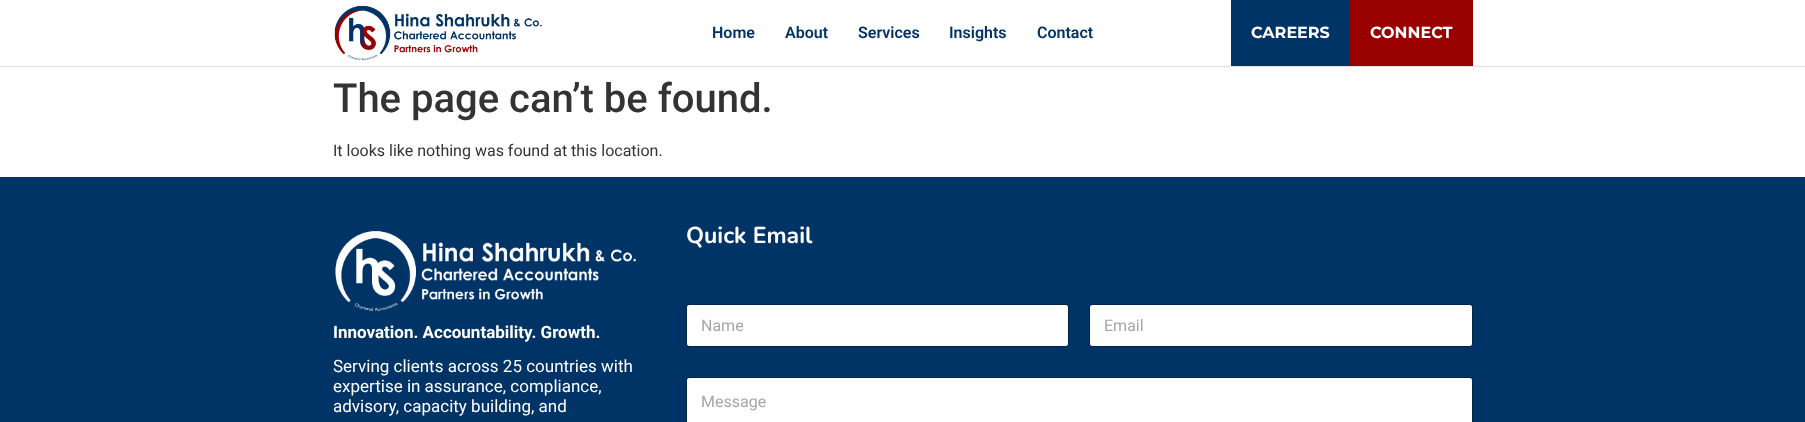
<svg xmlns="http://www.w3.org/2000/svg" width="1805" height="422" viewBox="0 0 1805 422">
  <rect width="100%" height="100%" fill="#ffffff"/>
  <rect x="0" y="66" width="1805" height="1" fill="#e0e0e0"/>
  <image x="334" y="5" width="208" height="56" href="img1.png"/>
  <text x="712" y="38" font-family="Roboto" font-size="16" font-weight="600" fill="#003366">Home</text>
  <text x="785" y="38" font-family="Roboto" font-size="16" font-weight="600" fill="#003366">About</text>
  <text x="858" y="38" font-family="Roboto" font-size="16" font-weight="600" fill="#003366">Services</text>
  <text x="949" y="38" font-family="Roboto" font-size="16" font-weight="600" fill="#003366">Insights</text>
  <text x="1037" y="38" font-family="Roboto" font-size="16" font-weight="600" fill="#003366">Contact</text>
  <rect x="1231" y="0" width="119" height="66" fill="#003366"/>
  <text x="1251" y="38" font-family="Montserrat" font-size="16" font-weight="bold" fill="#ffffff">CAREERS</text>
  <rect x="1350" y="0" width="123" height="66" fill="#990000"/>
  <text x="1370" y="38" font-family="Montserrat" font-size="16" font-weight="bold" fill="#ffffff">CONNECT</text>
  <text x="333" y="112" font-family="Roboto" font-size="40" font-weight="500" fill="#333333">The page can’t be found.</text>
  <text x="333" y="156" font-family="Roboto" font-size="16" fill="#333333">It looks like nothing was found at this location.</text>
  <rect x="0" y="177" width="1805" height="245" fill="#003366"/>
  <image x="335" y="231" width="301" height="80" href="img2.png"/>
  <text x="333" y="338" font-family="Roboto" font-size="17" font-weight="bold" fill="#ffffff">Innovation. Accountability. Growth.</text>
  <text x="333" y="372" font-family="Roboto" font-size="17" fill="#ffffff">Serving clients across 25 countries with</text>
  <text x="333" y="392" font-family="Roboto" font-size="17" fill="#ffffff">expertise in assurance, compliance,</text>
  <text x="333" y="412" font-family="Roboto" font-size="17" fill="#ffffff">advisory, capacity building, and</text>
  <text x="686" y="243" font-family="Nunito" font-size="23" font-weight="bold" fill="#ffffff">Quick Email</text>
  <rect x="687" y="305" width="381" height="41" rx="2" fill="#ffffff"/>
  <rect x="686.5" y="304.5" width="382" height="42" rx="2.5" fill="none" stroke="#000000" stroke-opacity="0.25"/>
  <text x="701" y="331" font-family="Roboto" font-size="16" fill="#a6a6a6">Name</text>
  <rect x="1090" y="305" width="382" height="41" rx="2" fill="#ffffff"/>
  <rect x="1089.5" y="304.5" width="383" height="42" rx="2.5" fill="none" stroke="#000000" stroke-opacity="0.25"/>
  <text x="1104" y="331" font-family="Roboto" font-size="16" fill="#a6a6a6">Email</text>
  <rect x="687" y="378" width="785" height="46" rx="2" fill="#ffffff"/>
  <rect x="686.5" y="377.5" width="786" height="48" rx="2.5" fill="none" stroke="#000000" stroke-opacity="0.25"/>
  <text x="701" y="407" font-family="Roboto" font-size="16" fill="#a6a6a6">Message</text>
</svg>
